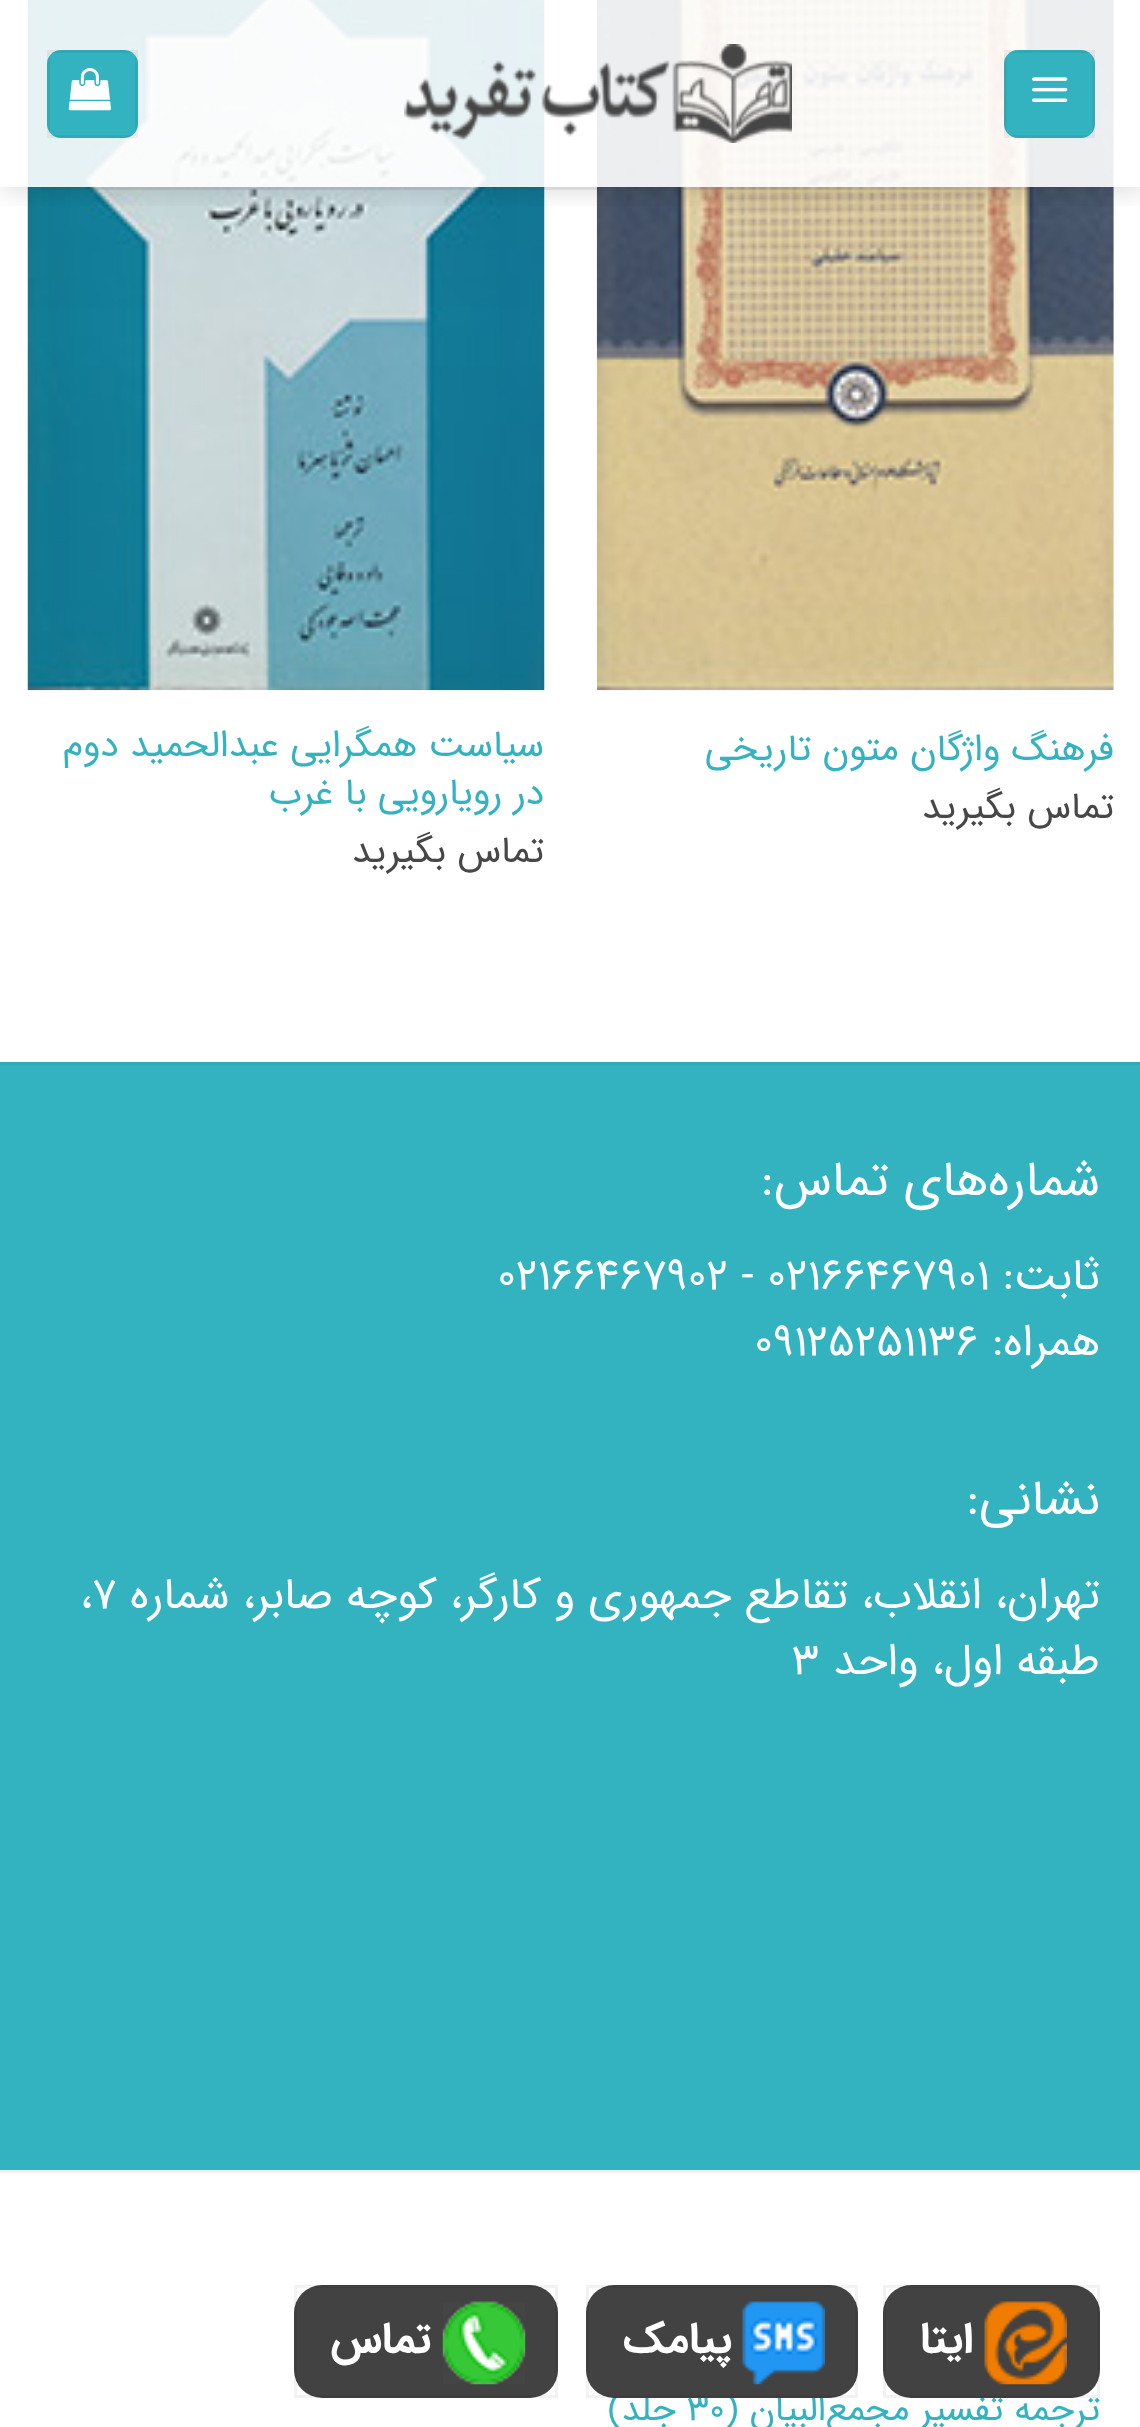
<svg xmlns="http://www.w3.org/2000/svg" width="1140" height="2427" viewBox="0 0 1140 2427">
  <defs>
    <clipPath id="clip1"><rect x="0" y="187" width="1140" height="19"/></clipPath>
    <filter id="blur1" x="-50%" y="-200%" width="200%" height="500%"><feGaussianBlur stdDeviation="14"/></filter>
  </defs>
  <rect width="100%" height="100%" fill="#ffffff"/>
  <image x="596" y="0" width="518" height="691" href="img4.png"/>
  <image x="27" y="0" width="518" height="691" href="img5.png"/>
  <g clip-path="url(#clip1)">
    <rect x="3" y="3" width="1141" height="187" fill="#000000" fill-opacity="0.15" filter="url(#blur1)"/>
  </g>
  <rect x="27" y="0" width="1087" height="187" fill="#ffffff" fill-opacity="0.9"/>
  <rect x="1004" y="50" width="91" height="88" rx="14" fill="#33b3bf"/>
  <rect x="1005.5" y="51.5" width="88" height="85" fill="none" stroke="#000000" stroke-opacity="0.05" stroke-width="3"/>
  <image x="1032" y="77" width="36" height="25" href="img1.png"/>
  <image x="404" y="44" width="388" height="99" href="img2.png"/>
  <rect x="47" y="50" width="91" height="88" rx="14" fill="#33b3bf"/>
  <rect x="48.5" y="51.5" width="88" height="85" fill="none" stroke="#000000" stroke-opacity="0.05" stroke-width="3"/>
  <image x="68" y="68" width="43" height="43" href="img3.png"/>
  <rect x="41" y="187" width="1059" height="3" fill="#474747" fill-opacity="0.1"/>
  <text x="1114" y="760" font-family="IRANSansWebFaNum" font-size="37.4" direction="rtl" fill="#33b3bf">فرهنگ واژگان متون تاریخی</text>
  <text x="1114" y="818" font-family="IRANSansWebFaNum" font-size="37.4" direction="rtl" fill="#474747">تماس بگیرید</text>
  <text x="544" y="756" font-family="IRANSansWebFaNum" font-size="37.4" direction="rtl" fill="#33b3bf">سیاست همگرایی عبدالحمید دوم</text>
  <text x="544" y="804" font-family="IRANSansWebFaNum" font-size="37.4" direction="rtl" fill="#33b3bf">در رویارویی با غرب</text>
  <text x="544" y="862" font-family="IRANSansWebFaNum" font-size="37.4" direction="rtl" fill="#474747">تماس بگیرید</text>
  <rect x="0" y="1065" width="1140" height="1105" fill="#33b3bf"/>
  <rect x="0" y="1062" width="1140" height="3" fill="#30aab5"/>
  <text x="1100" y="1195" font-family="IRANSansWebFaNum" font-size="49.5" direction="rtl" fill="#ffffff">شماره‌های تماس:</text>
  <text x="1100" y="1289" font-family="IRANSansWebFaNum" font-size="44" direction="rtl" fill="#ffffff">ثابت:</text>
  <text x="497" y="1289" font-family="IRANSansWebFaNum" font-size="44" fill="#ffffff">02166467902 - 02166467901</text>
  <text x="1100" y="1355" font-family="IRANSansWebFaNum" font-size="44" direction="rtl" fill="#ffffff">همراه:</text>
  <text x="754" y="1355" font-family="IRANSansWebFaNum" font-size="44" fill="#ffffff">09125251136</text>
  <text x="1100" y="1514" font-family="IRANSansWebFaNum" font-size="49.5" direction="rtl" fill="#ffffff">نشانی:</text>
  <text x="1100" y="1608" font-family="IRANSansWebFaNum" font-size="44" direction="rtl" fill="#ffffff">تهران، انقلاب، تقاطع جمهوری و کارگر، کوچه صابر، شماره</text>
  <text x="80" y="1608" font-family="IRANSansWebFaNum" font-size="44" fill="#ffffff">،7</text>
  <text x="1100" y="1674" font-family="IRANSansWebFaNum" font-size="44" direction="rtl" fill="#ffffff">طبقه اول، واحد</text>
  <text x="792" y="1674" font-family="IRANSansWebFaNum" font-size="44" fill="#ffffff">3</text>
  <rect x="0" y="2170" width="1140" height="3" fill="#f2f2f2"/>
  <text x="1100" y="2420" font-family="IRANSansWebFaNum" font-size="35.75" direction="rtl" fill="#33b3bf">ترجمه تفسیر مجمع‌البیان (</text>
  <text x="687" y="2420" font-family="IRANSansWebFaNum" font-size="35.75" fill="#33b3bf">30</text>
  <text x="676" y="2420" font-family="IRANSansWebFaNum" font-size="35.75" direction="rtl" fill="#33b3bf">جلد)</text>
  <rect x="883" y="2285" width="217" height="113" rx="28" fill="#424242"/>
  <rect x="884.5" y="2286.5" width="214" height="110" fill="none" stroke="#000000" stroke-opacity="0.05" stroke-width="3"/>
  <image x="984" y="2301" width="83" height="84" href="img6.png"/>
  <text x="973" y="2352" font-family="IRANSansWebFaNum" font-size="43" font-weight="bold" letter-spacing="1.25" direction="rtl" fill="#ffffff">ایتا</text>
  <rect x="586" y="2285" width="272" height="113" rx="28" fill="#424242"/>
  <rect x="587.5" y="2286.5" width="269" height="110" fill="none" stroke="#000000" stroke-opacity="0.05" stroke-width="3"/>
  <image x="742" y="2301" width="83" height="84" href="img7.png"/>
  <text x="732" y="2352" font-family="IRANSansWebFaNum" font-size="43" font-weight="bold" letter-spacing="1.25" direction="rtl" fill="#ffffff">پیامک</text>
  <rect x="294" y="2285" width="264" height="113" rx="28" fill="#424242"/>
  <rect x="295.5" y="2286.5" width="261" height="110" fill="none" stroke="#000000" stroke-opacity="0.05" stroke-width="3"/>
  <image x="442" y="2301" width="84" height="84" href="img8.png"/>
  <text x="431" y="2352" font-family="IRANSansWebFaNum" font-size="43" font-weight="bold" letter-spacing="1.25" direction="rtl" fill="#ffffff">تماس</text>
</svg>
